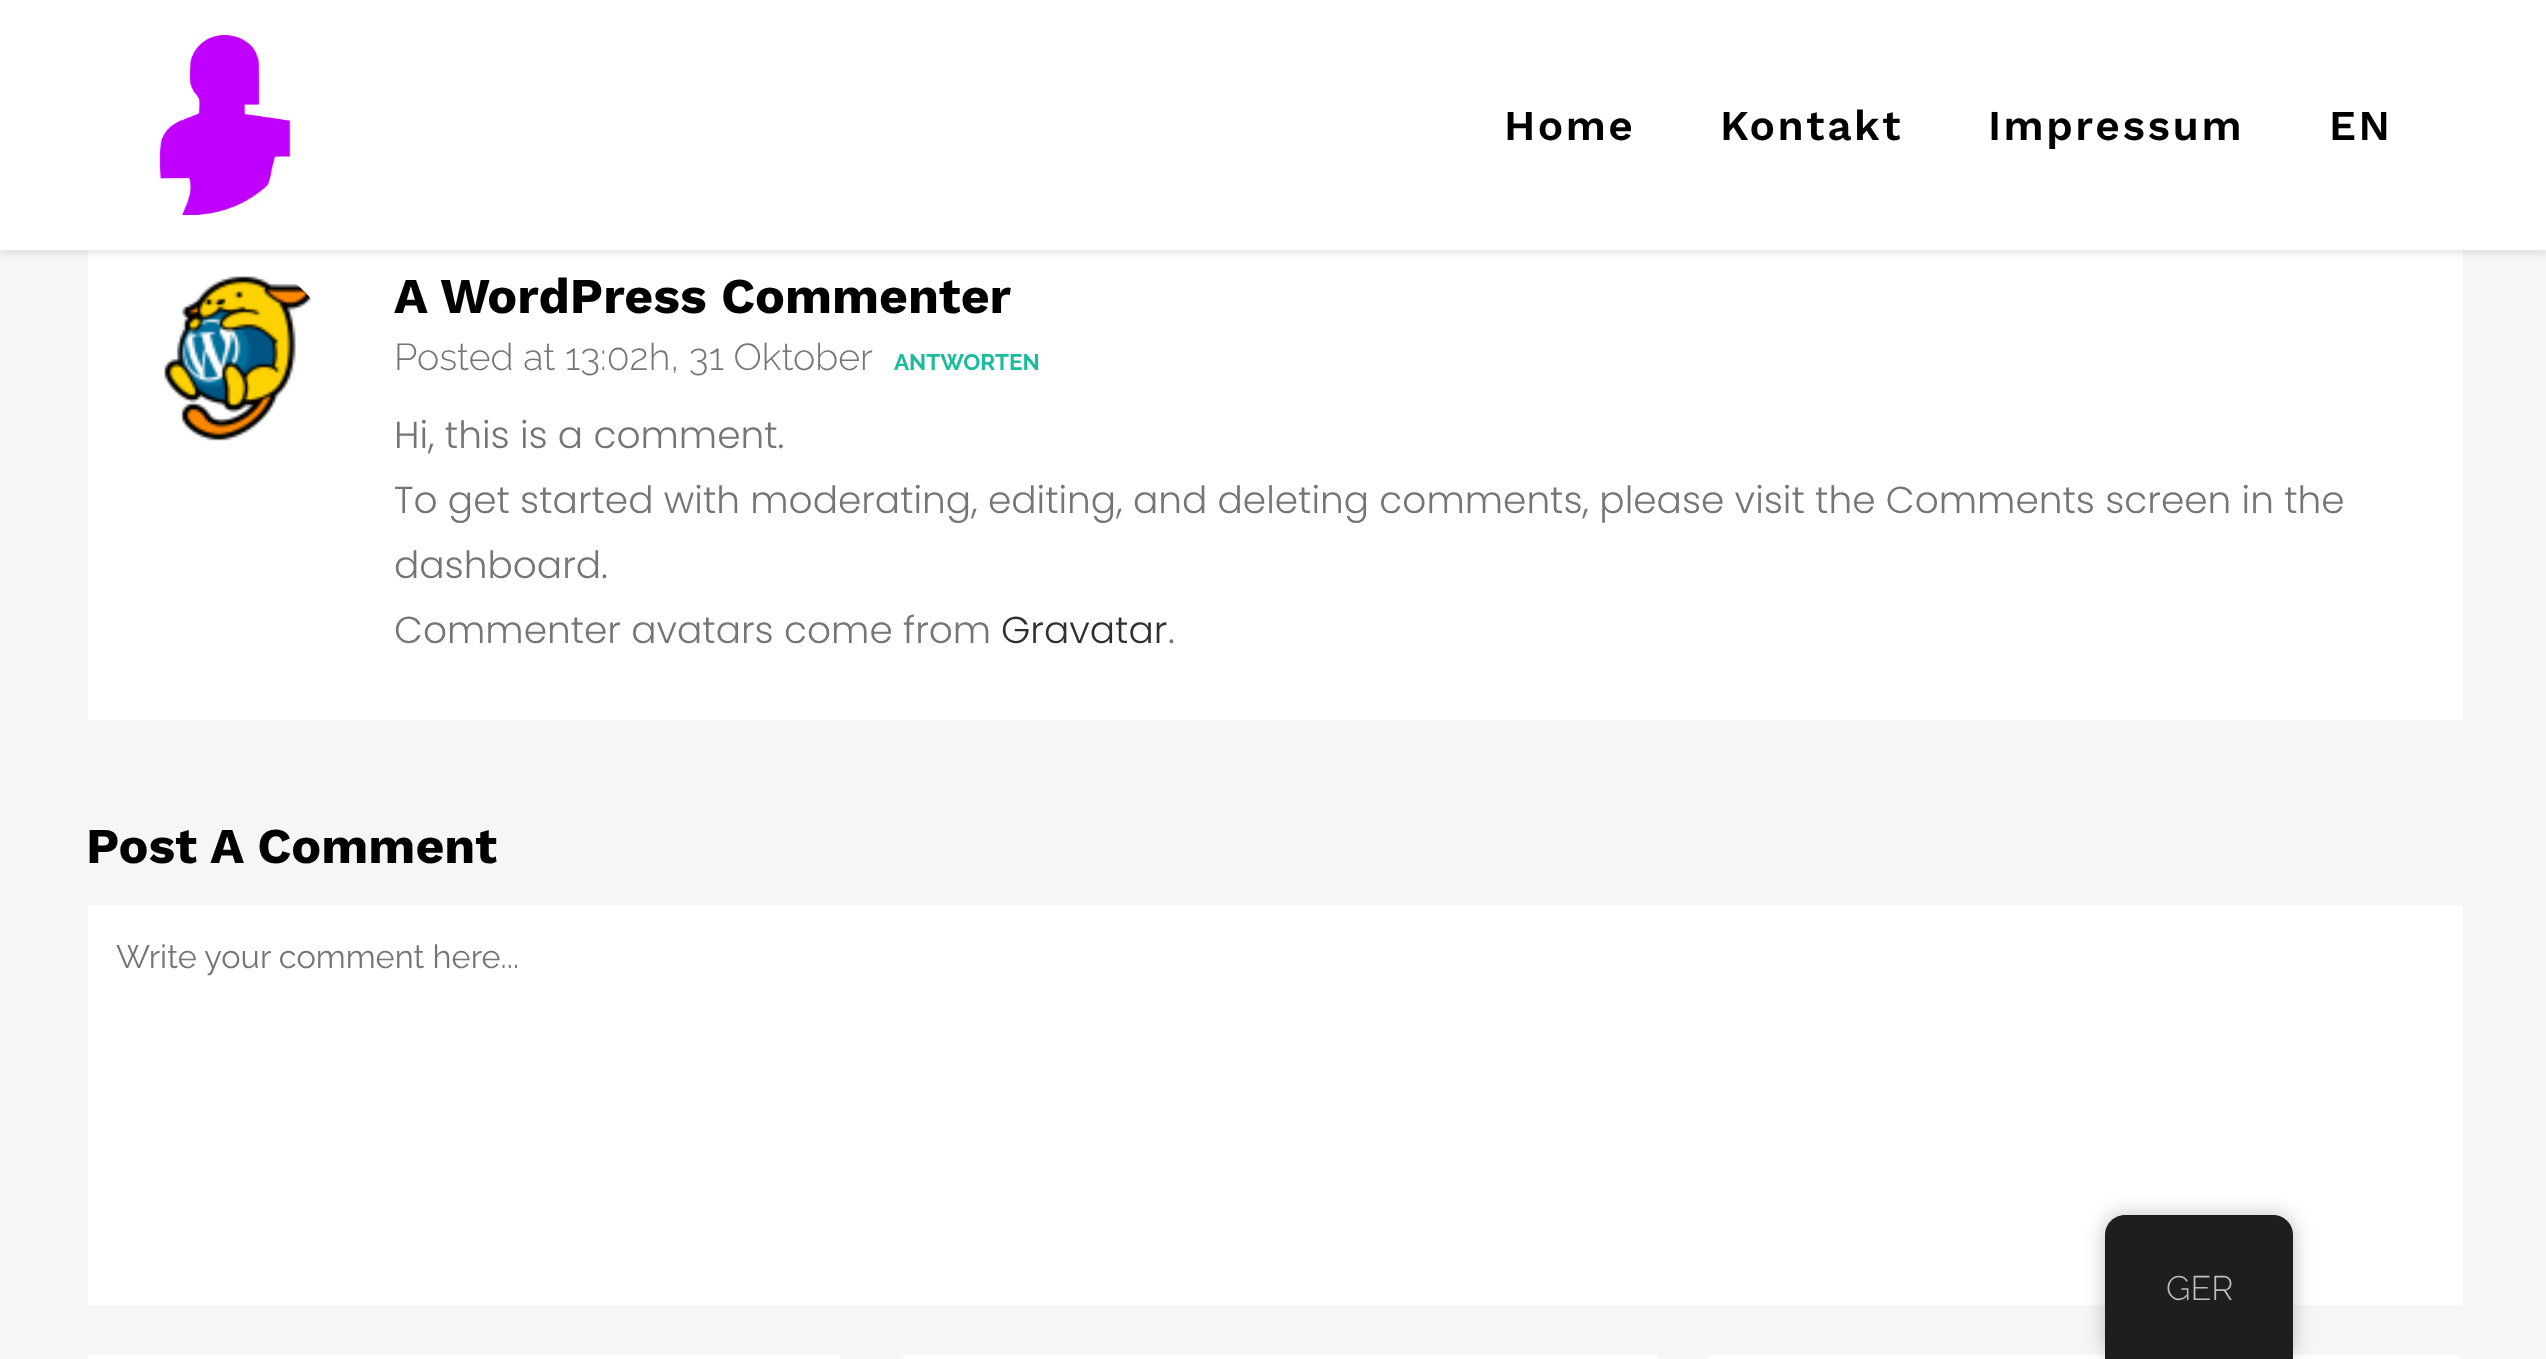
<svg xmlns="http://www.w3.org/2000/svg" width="2546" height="1359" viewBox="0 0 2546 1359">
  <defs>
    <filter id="blur1" x="-50%" y="-200%" width="200%" height="500%"><feGaussianBlur stdDeviation="4"/></filter>
    <filter id="blur2" x="-50%" y="-200%" width="200%" height="500%"><feGaussianBlur stdDeviation="10"/></filter>
  </defs>
  <rect width="100%" height="100%" fill="#f6f6f6"/>
  <rect x="88" y="250" width="2375" height="470" fill="#ffffff"/>
  <rect x="0" y="3" width="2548" height="250" fill="#000000" fill-opacity="0.11" filter="url(#blur1)"/>
  <rect x="0" y="0" width="2546" height="250" fill="#ffffff"/>
  <image x="159" y="35" width="132" height="180" href="img1.png"/>
  <text x="1504" y="140" font-family="Work Sans" font-size="42.5" font-weight="600" letter-spacing="2.5" fill="#000000">Home</text>
  <text x="1720" y="140" font-family="Work Sans" font-size="42.5" font-weight="600" letter-spacing="2.5" fill="#000000">Kontakt</text>
  <text x="1988" y="140" font-family="Work Sans" font-size="42.5" font-weight="600" letter-spacing="2.5" fill="#000000">Impressum</text>
  <text x="2329" y="140" font-family="Work Sans" font-size="42.5" font-weight="600" letter-spacing="2.5" fill="#000000">EN</text>
  <image x="164" y="276" width="147" height="165" href="img2.png"/>
  <text x="394" y="313" font-family="Work Sans" font-size="50" font-weight="bold" fill="#000000">A WordPress Commenter</text>
  <text x="394" y="370" font-family="Raleway" font-size="37.5" font-weight="300" fill="#757575">Posted at 13:02h, 31 Oktober</text>
  <text x="894" y="370" font-family="Raleway" font-size="22.5" font-weight="bold" fill="#1abc9c">ANTWORTEN</text>
  <text x="394" y="448" font-family="Poppins" font-size="37.5" font-weight="300" fill="#757575">Hi, this is a comment.</text>
  <text x="394" y="513" font-family="Poppins" font-size="37.5" font-weight="300" fill="#757575">To get started with moderating, editing, and deleting comments, please visit the Comments screen in the</text>
  <text x="394" y="578" font-family="Poppins" font-size="37.5" font-weight="300" fill="#757575">dashboard.</text>
  <text x="394" y="643" font-family="Poppins" font-size="37.5" font-weight="300" fill="#757575">Commenter avatars come from</text>
  <text x="1001" y="643" font-family="Poppins" font-size="37.5" font-weight="300" fill="#303030">Gravatar</text>
  <text x="1168" y="643" font-family="Poppins" font-size="37.5" font-weight="300" fill="#757575">.</text>
  <text x="86" y="863" font-family="Work Sans" font-size="50" font-weight="bold" fill="#000000">Post A Comment</text>
  <rect x="88" y="905" width="2375" height="400" fill="#ffffff"/>
  <text x="116" y="968" font-family="Raleway" font-size="32.5" fill="#757575">Write your comment here...</text>
  <rect x="88" y="1355" width="752" height="4" fill="#ffffff"/>
  <rect x="903" y="1355" width="755" height="4" fill="#ffffff"/>
  <rect x="1708" y="1355" width="752" height="4" fill="#ffffff"/>
  <rect x="2105" y="1215" width="188" height="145" rx="20" fill="#000000" fill-opacity="0.25" filter="url(#blur2)"/>
  <path d="M2125 1215H2273C2284 1215 2293 1224 2293 1235V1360H2105V1235C2105 1224 2114 1215 2125 1215Z" fill="#1e1e1e"/>
  <text x="2166" y="1300" font-family="Raleway" font-size="34" font-weight="300" fill="#bdbdbd">GER</text>
</svg>
